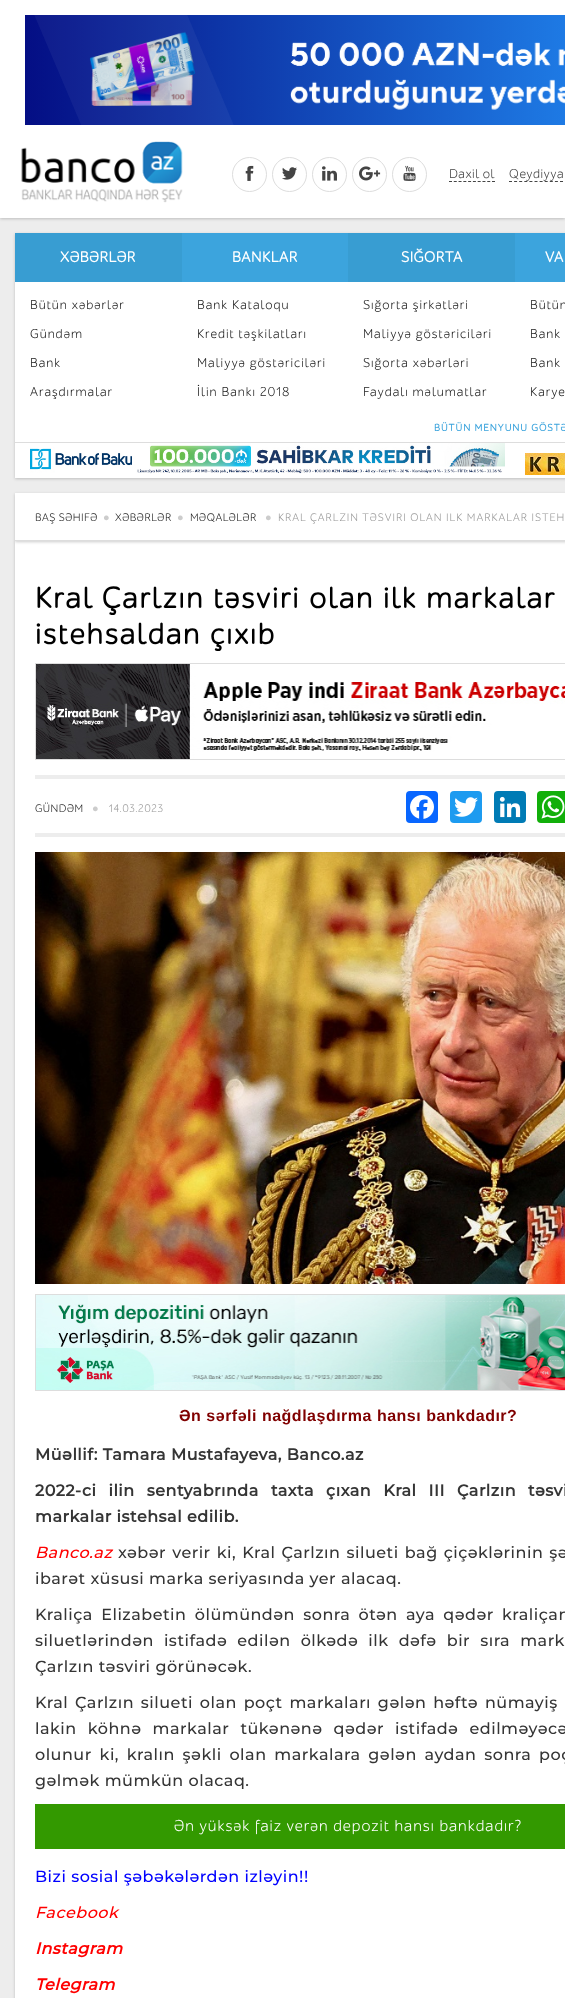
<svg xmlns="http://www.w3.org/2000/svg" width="565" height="1998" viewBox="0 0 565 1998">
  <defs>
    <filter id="blur1" x="-50%" y="-200%" width="200%" height="500%"><feGaussianBlur stdDeviation="1.5"/></filter>
  </defs>
  <rect width="100%" height="100%" fill="#ededed"/>
  <rect x="0" y="1" width="565" height="218" fill="#000000" fill-opacity="0.2" filter="url(#blur1)"/>
  <rect x="0" y="0" width="565" height="218" fill="#ffffff"/>
  <image x="25" y="15" width="540" height="110" href="img1.png"/>
  <image x="21" y="141" width="162" height="62" href="img2.png"/>
  <circle cx="249.5" cy="174.5" r="17" fill="none" stroke="#dddddd"/>
  <image x="245" y="165" width="9" height="16" href="img3.png"/>
  <circle cx="289.5" cy="174.5" r="17" fill="none" stroke="#dddddd"/>
  <image x="282" y="167" width="15" height="13" href="img4.png"/>
  <circle cx="329.5" cy="174.5" r="17" fill="none" stroke="#dddddd"/>
  <image x="322" y="166" width="15" height="15" href="img5.png"/>
  <circle cx="369.5" cy="174.5" r="17" fill="none" stroke="#dddddd"/>
  <image x="359" y="166" width="22" height="15" href="img6.png"/>
  <circle cx="409.5" cy="174.5" r="17" fill="none" stroke="#dddddd"/>
  <image x="403" y="165" width="13" height="16" href="img7.png"/>
  <text x="449" y="178" font-family="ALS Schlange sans" font-size="13" letter-spacing="0.5" fill="#444444">Daxil ol</text>
  <path d="M449 181.5H495" fill="none" stroke="#444444" stroke-dasharray="3 1.78"/>
  <text x="509" y="178" font-family="ALS Schlange sans" font-size="13" letter-spacing="0.5" fill="#444444">Qeydiyya</text>
  <path d="M509 181.5H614" fill="none" stroke="#444444" stroke-dasharray="3 2.1"/>
  <rect x="15" y="234" width="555" height="245" fill="#000000" fill-opacity="0.2" filter="url(#blur1)"/>
  <rect x="15" y="282" width="550" height="196" fill="#ffffff"/>
  <rect x="15" y="442" width="550" height="1" fill="#dddddd"/>
  <rect x="15" y="233" width="167" height="49" fill="#389dd2"/>
  <text x="60" y="262" font-family="ALS Schlange sans" font-size="15" font-weight="bold" letter-spacing="0.5" fill="#ffffff">XƏBƏRLƏR</text>
  <text x="30" y="309" font-family="ALS Schlange sans" font-size="13" letter-spacing="1" fill="#222222">Bütün xəbərlər</text>
  <text x="30" y="338" font-family="ALS Schlange sans" font-size="13" letter-spacing="1" fill="#222222">Gündəm</text>
  <text x="30" y="367" font-family="ALS Schlange sans" font-size="13" letter-spacing="1" fill="#222222">Bank</text>
  <text x="30" y="396" font-family="ALS Schlange sans" font-size="13" letter-spacing="1" fill="#222222">Araşdırmalar</text>
  <rect x="182" y="233" width="166" height="49" fill="#3ca4dd"/>
  <text x="232" y="262" font-family="ALS Schlange sans" font-size="15" font-weight="bold" letter-spacing="0.5" fill="#ffffff">BANKLAR</text>
  <text x="197" y="309" font-family="ALS Schlange sans" font-size="13" letter-spacing="1" fill="#222222">Bank Kataloqu</text>
  <text x="197" y="338" font-family="ALS Schlange sans" font-size="13" letter-spacing="1" fill="#222222">Kredit təşkilatları</text>
  <text x="197" y="367" font-family="ALS Schlange sans" font-size="13" letter-spacing="1" fill="#222222">Maliyyə göstəriciləri</text>
  <text x="197" y="396" font-family="ALS Schlange sans" font-size="13" letter-spacing="1" fill="#222222">İlin Bankı 2018</text>
  <rect x="348" y="233" width="167" height="49" fill="#389dd2"/>
  <text x="401" y="262" font-family="ALS Schlange sans" font-size="15" font-weight="bold" letter-spacing="0.5" fill="#ffffff">SIĞORTA</text>
  <text x="363" y="309" font-family="ALS Schlange sans" font-size="13" letter-spacing="1" fill="#222222">Sığorta şirkətləri</text>
  <text x="363" y="338" font-family="ALS Schlange sans" font-size="13" letter-spacing="1" fill="#222222">Maliyyə göstəriciləri</text>
  <text x="363" y="367" font-family="ALS Schlange sans" font-size="13" letter-spacing="1" fill="#222222">Sığorta xəbərləri</text>
  <text x="363" y="396" font-family="ALS Schlange sans" font-size="13" letter-spacing="1" fill="#222222">Faydalı məlumatlar</text>
  <rect x="515" y="233" width="50" height="49" fill="#3ca4dd"/>
  <text x="545" y="262" font-family="ALS Schlange sans" font-size="15" font-weight="bold" letter-spacing="0.5" fill="#ffffff">VA</text>
  <text x="530" y="309" font-family="ALS Schlange sans" font-size="13" letter-spacing="1" fill="#222222">Bütün</text>
  <text x="530" y="338" font-family="ALS Schlange sans" font-size="13" letter-spacing="1" fill="#222222">Bank</text>
  <text x="530" y="367" font-family="ALS Schlange sans" font-size="13" letter-spacing="1" fill="#222222">Bank</text>
  <text x="530" y="396" font-family="ALS Schlange sans" font-size="13" letter-spacing="1" fill="#222222">Karye</text>
  <text x="434" y="431" font-family="ALS Schlange sans" font-size="10" font-weight="bold" letter-spacing="1" fill="#3ca4dd">BÜTÜN MENYUNU GÖSTƏ</text>
  <image x="30" y="443" width="475" height="31" href="img8.png"/>
  <image x="525" y="453" width="40" height="22" href="img9.png"/>
  <rect x="15" y="542" width="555" height="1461" fill="#000000" fill-opacity="0.2" filter="url(#blur1)"/>
  <rect x="15" y="541" width="550" height="1457" fill="#ffffff"/>
  <rect x="15" y="494" width="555" height="48" fill="#000000" fill-opacity="0.2" filter="url(#blur1)"/>
  <rect x="15" y="493" width="550" height="47" fill="#ffffff"/>
  <rect x="15" y="540" width="550" height="1" fill="#dddddd"/>
  <text x="35" y="521" font-family="ALS Schlange sans" font-size="11" letter-spacing="0.5" fill="#222222">BAŞ SƏHIFƏ</text>
  <text x="103" y="521" font-family="Liberation Serif" font-size="11" letter-spacing="1" fill="#cccccc">●</text>
  <text x="115" y="521" font-family="ALS Schlange sans" font-size="11" letter-spacing="0.5" fill="#222222">XƏBƏRLƏR</text>
  <text x="177" y="521" font-family="Liberation Serif" font-size="11" letter-spacing="1" fill="#cccccc">●</text>
  <text x="190" y="521" font-family="ALS Schlange sans" font-size="11" letter-spacing="0.5" fill="#222222">MƏQALƏLƏR</text>
  <text x="265" y="521" font-family="Liberation Serif" font-size="11" letter-spacing="1" fill="#cccccc">●</text>
  <text x="278" y="521" font-family="ALS Schlange sans" font-size="11" letter-spacing="1" fill="#999999">KRAL ÇARLZIN TƏSVIRI OLAN ILK MARKALAR ISTEH</text>
  <text x="35" y="608" font-family="ALS Schlange sans" font-size="30" font-weight="bold" letter-spacing="2" fill="#000000">Kral Çarlzın təsviri olan ilk markalar</text>
  <text x="35" y="644" font-family="ALS Schlange sans" font-size="30" font-weight="bold" letter-spacing="2" fill="#000000">istehsaldan çıxıb</text>
  <rect x="35.5" y="663.5" width="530" height="96" fill="none" stroke="#dddddd"/>
  <image x="36" y="664" width="529" height="95" href="img10.png"/>
  <rect x="35" y="775" width="530" height="4" fill="#ededed"/>
  <rect x="35" y="833" width="530" height="4" fill="#ededed"/>
  <text x="35" y="812" font-family="ALS Schlange sans" font-size="11" letter-spacing="0.5" fill="#222222">GÜNDƏM</text>
  <text x="92" y="812" font-family="Liberation Serif" font-size="11" letter-spacing="1" fill="#cccccc">●</text>
  <text x="109" y="812" font-family="ALS Schlange sans" font-size="11" letter-spacing="0.5" fill="#999999">14.03.2023</text>
  <rect x="406" y="791" width="32" height="32" rx="4" fill="#0866ff"/>
  <image x="410" y="795" width="24" height="24" href="img11.png"/>
  <rect x="450" y="791" width="32" height="32" rx="4" fill="#1d9bf0"/>
  <image x="454" y="797" width="24" height="20" href="img12.png"/>
  <rect x="494" y="791" width="32" height="32" rx="4" fill="#007bb5"/>
  <image x="499" y="796" width="22" height="22" href="img13.png"/>
  <rect x="537" y="791" width="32" height="32" rx="4" fill="#12af0a"/>
  <image x="541" y="795" width="24" height="24" href="img14.png"/>
  <image x="35" y="852" width="530" height="432" href="img15.png"/>
  <rect x="35.5" y="1294.5" width="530" height="96" fill="none" stroke="#dddddd"/>
  <image x="36" y="1295" width="529" height="95" href="img16.png"/>
  <text x="179" y="1421" font-family="Liberation Sans" font-size="16" font-weight="bold" letter-spacing="0.5" fill="#800000">Ən sərfəli nağdlaşdırma hansı bankdadır?</text>
  <text x="35" y="1460" font-family="Montserrat" font-size="16" font-weight="bold" letter-spacing="0.5" fill="#353535">Müəllif: Tamara Mustafayeva, Banco.az</text>
  <text x="35" y="1496" word-spacing="7.25" font-family="Montserrat" font-size="16" font-weight="bold" letter-spacing="0.5" fill="#353535">2022-ci ilin sentyabrında taxta çıxan Kral III Çarlzın təsvi</text>
  <text x="35" y="1522" font-family="Montserrat" font-size="16" font-weight="bold" letter-spacing="0.5" fill="#353535">markalar istehsal edilib.</text>
  <text x="35" y="1558" font-family="Montserrat" font-size="16" font-weight="500" font-style="italic" letter-spacing="0.5" fill="#ff0000">Banco.az</text>
  <text x="118" y="1558" word-spacing="1.25" font-family="Montserrat" font-size="16" font-weight="500" letter-spacing="0.5" fill="#353535">xəbər verir ki, Kral Çarlzın silueti bağ çiçəklərinin şə</text>
  <text x="35" y="1584" font-family="Montserrat" font-size="16" font-weight="500" letter-spacing="0.5" fill="#353535">ibarət xüsusi marka seriyasında yer alacaq.</text>
  <text x="35" y="1620" word-spacing="3.5" font-family="Montserrat" font-size="16" font-weight="500" letter-spacing="0.5" fill="#353535">Kraliça Elizabetin ölümündən sonra ötən aya qədər kraliçan</text>
  <text x="35" y="1646" word-spacing="5.25" font-family="Montserrat" font-size="16" font-weight="500" letter-spacing="0.5" fill="#353535">siluetlərindən istifadə edilən ölkədə ilk dəfə bir sıra mark</text>
  <text x="35" y="1672" font-family="Montserrat" font-size="16" font-weight="500" letter-spacing="0.5" fill="#353535">Çarlzın təsviri görünəcək.</text>
  <text x="35" y="1708" word-spacing="2" font-family="Montserrat" font-size="16" font-weight="500" letter-spacing="0.5" fill="#353535">Kral Çarlzın silueti olan poçt markaları gələn həftə nümayiş</text>
  <text x="35" y="1734" word-spacing="6.25" font-family="Montserrat" font-size="16" font-weight="500" letter-spacing="0.5" fill="#353535">lakin köhnə markalar tükənənə qədər istifadə edilməyəcə</text>
  <text x="35" y="1760" word-spacing="3" font-family="Montserrat" font-size="16" font-weight="500" letter-spacing="0.5" fill="#353535">olunur ki, kralın şəkli olan markalara gələn aydan sonra poç</text>
  <text x="35" y="1786" font-family="Montserrat" font-size="16" font-weight="500" letter-spacing="0.5" fill="#353535">gəlmək mümkün olacaq.</text>
  <rect x="35" y="1804" width="530" height="45" fill="#339900"/>
  <text x="174" y="1831" font-family="ALS Schlange sans" font-size="16" letter-spacing="1" fill="#ffffff">Ən yüksək faiz verən depozit hansı bankdadır?</text>
  <text x="35" y="1882" font-family="Montserrat" font-size="16" font-weight="500" letter-spacing="0.5" fill="#0000ff">Bizi sosial şəbəkələrdən izləyin!!</text>
  <text x="35" y="1918" font-family="Montserrat" font-size="16" font-weight="500" font-style="italic" letter-spacing="0.5" fill="#ff0000">Facebook</text>
  <text x="35" y="1954" font-family="Montserrat" font-size="16" font-weight="bold" font-style="italic" letter-spacing="0.5" fill="#ff0000">Instagram</text>
  <text x="35" y="1990" font-family="Montserrat" font-size="16" font-weight="bold" font-style="italic" letter-spacing="0.5" fill="#ff0000">Telegram</text>
</svg>
